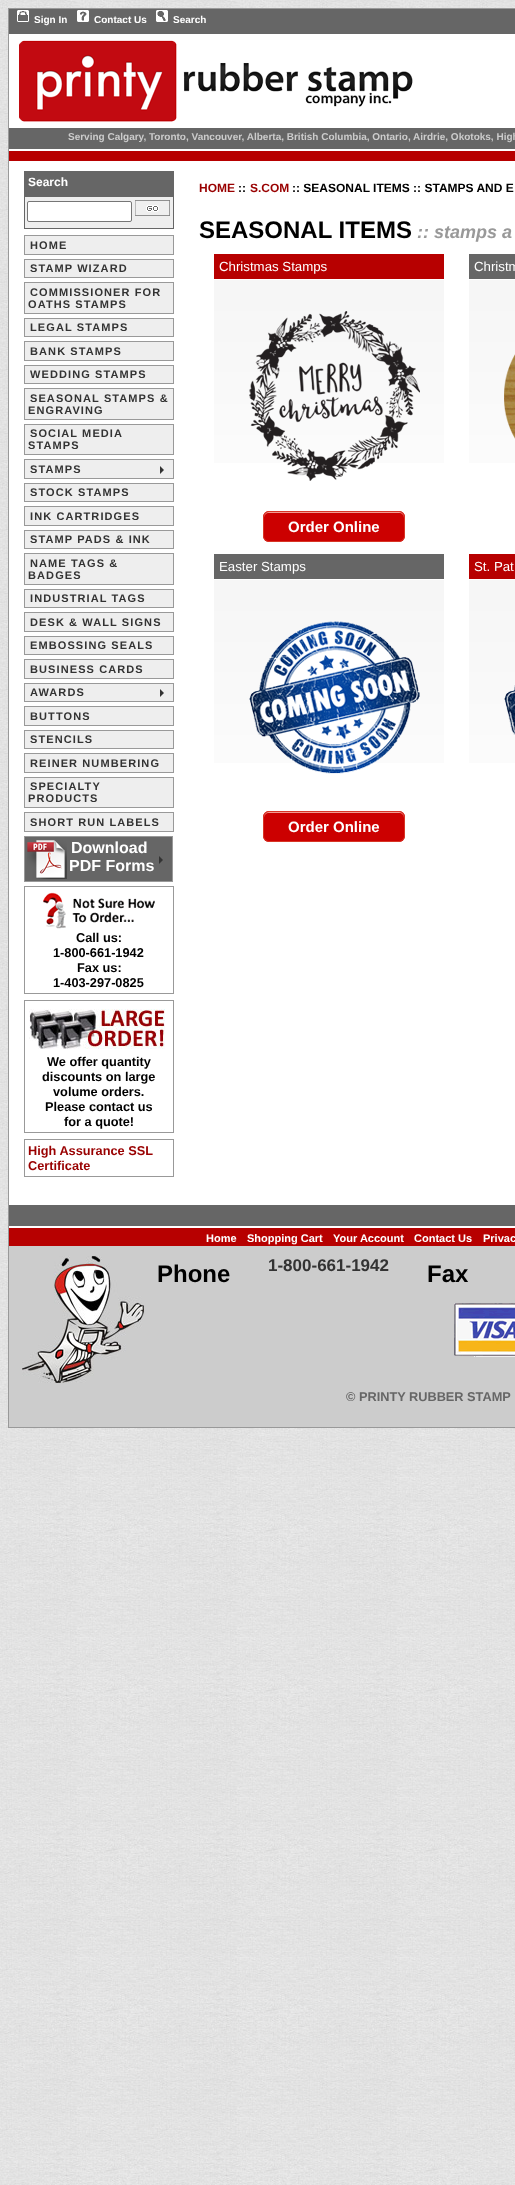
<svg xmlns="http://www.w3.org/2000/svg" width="515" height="2185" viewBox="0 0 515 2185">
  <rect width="100%" height="100%" fill="#ffffff"/>
  <image x="0" y="0" width="515" height="2185" href="img1.png"/>
  <rect x="8.5" y="8.5" width="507" height="1419" fill="none" stroke="#999999"/>
  <rect x="9" y="34" width="506" height="1194" fill="#ffffff"/>
  <rect x="9" y="9" width="506" height="25" fill="#666666"/>
  <image x="17" y="10" width="12" height="12" href="img2.png"/>
  <text x="34" y="23" font-family="Liberation Sans" font-size="10" font-weight="bold" fill="#ffffff">Sign In</text>
  <image x="77" y="10" width="12" height="12" href="img3.png"/>
  <text x="94" y="23" font-family="Liberation Sans" font-size="10" font-weight="bold" fill="#ffffff">Contact Us</text>
  <image x="156" y="10" width="12" height="12" href="img4.png"/>
  <text x="173" y="23" font-family="Liberation Sans" font-size="10" font-weight="bold" fill="#ffffff">Search</text>
  <image x="19" y="40" width="394" height="82" href="img5.png"/>
  <rect x="9" y="128" width="506" height="21" fill="#666666"/>
  <text x="68" y="140" font-family="Liberation Sans" font-size="10" font-weight="bold" fill="#cccccc">Serving Calgary, Toronto, Vancouver, Alberta, British Columbia, Ontario, Airdrie, Okotoks, High</text>
  <rect x="9" y="151" width="506" height="10" fill="#b70000"/>
  <rect x="24" y="171" width="150" height="25" fill="#666666"/>
  <text x="28" y="186" font-family="Liberation Sans" font-size="12" font-weight="bold" fill="#ffffff">Search</text>
  <rect x="24.5" y="196.5" width="149" height="32" fill="#eeeeee" stroke="#666666"/>
  <rect x="27.5" y="201.5" width="104" height="20" rx="1.5" fill="#ffffff" stroke="#767676"/>
  <image x="135" y="200" width="35" height="16" href="img6.png"/>
  <rect x="24.5" y="235.5" width="149" height="19" fill="#eeeeee" stroke="#999999"/>
  <text x="30" y="249" font-family="Liberation Sans" font-size="11" font-weight="bold" letter-spacing="1.1" fill="#333333">HOME</text>
  <rect x="24.5" y="259.5" width="149" height="18" fill="#eeeeee" stroke="#999999"/>
  <text x="30" y="272" font-family="Liberation Sans" font-size="11" font-weight="bold" letter-spacing="1.1" fill="#333333">STAMP WIZARD</text>
  <rect x="24.5" y="282.5" width="149" height="31" fill="#eeeeee" stroke="#999999"/>
  <text x="30" y="296" font-family="Liberation Sans" font-size="11" font-weight="bold" letter-spacing="1.1" fill="#333333">COMMISSIONER FOR</text>
  <text x="28" y="308" font-family="Liberation Sans" font-size="11" font-weight="bold" letter-spacing="1.1" fill="#333333">OATHS STAMPS</text>
  <rect x="24.5" y="318.5" width="149" height="18" fill="#eeeeee" stroke="#999999"/>
  <text x="30" y="331" font-family="Liberation Sans" font-size="11" font-weight="bold" letter-spacing="1.1" fill="#333333">LEGAL STAMPS</text>
  <rect x="24.5" y="341.5" width="149" height="19" fill="#eeeeee" stroke="#999999"/>
  <text x="30" y="355" font-family="Liberation Sans" font-size="11" font-weight="bold" letter-spacing="1.1" fill="#333333">BANK STAMPS</text>
  <rect x="24.5" y="365.5" width="149" height="18" fill="#eeeeee" stroke="#999999"/>
  <text x="30" y="378" font-family="Liberation Sans" font-size="11" font-weight="bold" letter-spacing="1.1" fill="#333333">WEDDING STAMPS</text>
  <rect x="24.5" y="388.5" width="149" height="31" fill="#eeeeee" stroke="#999999"/>
  <text x="30" y="402" font-family="Liberation Sans" font-size="11" font-weight="bold" letter-spacing="1.1" fill="#333333">SEASONAL STAMPS &amp;</text>
  <text x="28" y="414" font-family="Liberation Sans" font-size="11" font-weight="bold" letter-spacing="1.1" fill="#333333">ENGRAVING</text>
  <rect x="24.5" y="424.5" width="149" height="30" fill="#eeeeee" stroke="#999999"/>
  <text x="30" y="437" font-family="Liberation Sans" font-size="11" font-weight="bold" letter-spacing="1.1" fill="#333333">SOCIAL MEDIA</text>
  <text x="28" y="449" font-family="Liberation Sans" font-size="11" font-weight="bold" letter-spacing="1.1" fill="#333333">STAMPS</text>
  <rect x="24.5" y="459.5" width="149" height="19" fill="#eeeeee" stroke="#999999"/>
  <text x="30" y="473" font-family="Liberation Sans" font-size="11" font-weight="bold" letter-spacing="1.1" fill="#333333">STAMPS</text>
  <path d="M160 474V466L164 470Z" fill="#333333"/>
  <rect x="24.5" y="483.5" width="149" height="18" fill="#eeeeee" stroke="#999999"/>
  <text x="30" y="496" font-family="Liberation Sans" font-size="11" font-weight="bold" letter-spacing="1.1" fill="#333333">STOCK STAMPS</text>
  <rect x="24.5" y="506.5" width="149" height="19" fill="#eeeeee" stroke="#999999"/>
  <text x="30" y="520" font-family="Liberation Sans" font-size="11" font-weight="bold" letter-spacing="1.1" fill="#333333">INK CARTRIDGES</text>
  <rect x="24.5" y="530.5" width="149" height="18" fill="#eeeeee" stroke="#999999"/>
  <text x="30" y="543" font-family="Liberation Sans" font-size="11" font-weight="bold" letter-spacing="1.1" fill="#333333">STAMP PADS &amp; INK</text>
  <rect x="24.5" y="553.5" width="149" height="31" fill="#eeeeee" stroke="#999999"/>
  <text x="30" y="567" font-family="Liberation Sans" font-size="11" font-weight="bold" letter-spacing="1.1" fill="#333333">NAME TAGS &amp;</text>
  <text x="28" y="579" font-family="Liberation Sans" font-size="11" font-weight="bold" letter-spacing="1.1" fill="#333333">BADGES</text>
  <rect x="24.5" y="589.5" width="149" height="18" fill="#eeeeee" stroke="#999999"/>
  <text x="30" y="602" font-family="Liberation Sans" font-size="11" font-weight="bold" letter-spacing="1.1" fill="#333333">INDUSTRIAL TAGS</text>
  <rect x="24.5" y="612.5" width="149" height="19" fill="#eeeeee" stroke="#999999"/>
  <text x="30" y="626" font-family="Liberation Sans" font-size="11" font-weight="bold" letter-spacing="1.1" fill="#333333">DESK &amp; WALL SIGNS</text>
  <rect x="24.5" y="636.5" width="149" height="18" fill="#eeeeee" stroke="#999999"/>
  <text x="30" y="649" font-family="Liberation Sans" font-size="11" font-weight="bold" letter-spacing="1.1" fill="#333333">EMBOSSING SEALS</text>
  <rect x="24.5" y="659.5" width="149" height="19" fill="#eeeeee" stroke="#999999"/>
  <text x="30" y="673" font-family="Liberation Sans" font-size="11" font-weight="bold" letter-spacing="1.1" fill="#333333">BUSINESS CARDS</text>
  <rect x="24.5" y="683.5" width="149" height="18" fill="#eeeeee" stroke="#999999"/>
  <text x="30" y="696" font-family="Liberation Sans" font-size="11" font-weight="bold" letter-spacing="1.1" fill="#333333">AWARDS</text>
  <path d="M160 697V689L164 693Z" fill="#333333"/>
  <rect x="24.5" y="706.5" width="149" height="19" fill="#eeeeee" stroke="#999999"/>
  <text x="30" y="720" font-family="Liberation Sans" font-size="11" font-weight="bold" letter-spacing="1.1" fill="#333333">BUTTONS</text>
  <rect x="24.5" y="730.5" width="149" height="18" fill="#eeeeee" stroke="#999999"/>
  <text x="30" y="743" font-family="Liberation Sans" font-size="11" font-weight="bold" letter-spacing="1.1" fill="#333333">STENCILS</text>
  <rect x="24.5" y="753.5" width="149" height="19" fill="#eeeeee" stroke="#999999"/>
  <text x="30" y="767" font-family="Liberation Sans" font-size="11" font-weight="bold" letter-spacing="1.1" fill="#333333">REINER NUMBERING</text>
  <rect x="24.5" y="777.5" width="149" height="30" fill="#eeeeee" stroke="#999999"/>
  <text x="30" y="790" font-family="Liberation Sans" font-size="11" font-weight="bold" letter-spacing="1.1" fill="#333333">SPECIALTY</text>
  <text x="28" y="802" font-family="Liberation Sans" font-size="11" font-weight="bold" letter-spacing="1.1" fill="#333333">PRODUCTS</text>
  <rect x="24.5" y="812.5" width="149" height="19" fill="#eeeeee" stroke="#999999"/>
  <text x="30" y="826" font-family="Liberation Sans" font-size="11" font-weight="bold" letter-spacing="1.1" fill="#333333">SHORT RUN LABELS</text>
  <rect x="24.5" y="836.5" width="148" height="45" fill="#666666" stroke="#999999"/>
  <image x="27" y="840" width="40" height="39" href="img7.png"/>
  <text x="71" y="853" font-family="Liberation Sans" font-size="16" font-weight="bold" fill="#ffffff">Download</text>
  <text x="69" y="871" font-family="Liberation Sans" font-size="16" font-weight="bold" fill="#ffffff">PDF Forms</text>
  <path d="M159 864V856L163 860Z" fill="#333333"/>
  <rect x="24.5" y="886.5" width="149" height="107" fill="none" stroke="#999999"/>
  <image x="43" y="892" width="112" height="37" href="img8.png"/>
  <text x="76" y="942" font-family="Liberation Sans" font-size="12.75" font-weight="bold" fill="#000000">Call us:</text>
  <text x="53" y="957" font-family="Liberation Sans" font-size="12.75" font-weight="bold" fill="#000000">1-800-661-1942</text>
  <text x="77" y="972" font-family="Liberation Sans" font-size="12.75" font-weight="bold" fill="#000000">Fax us:</text>
  <text x="53" y="987" font-family="Liberation Sans" font-size="12.75" font-weight="bold" fill="#000000">1-403-297-0825</text>
  <rect x="24.5" y="1000.5" width="149" height="132" fill="none" stroke="#999999"/>
  <image x="29" y="1009" width="136" height="40" href="img9.png"/>
  <text x="47" y="1066" font-family="Liberation Sans" font-size="12.75" font-weight="bold" fill="#000000">We offer quantity</text>
  <text x="42" y="1081" font-family="Liberation Sans" font-size="12.75" font-weight="bold" fill="#000000">discounts on large</text>
  <text x="53" y="1096" font-family="Liberation Sans" font-size="12.75" font-weight="bold" fill="#000000">volume orders.</text>
  <text x="45" y="1111" font-family="Liberation Sans" font-size="12.75" font-weight="bold" fill="#000000">Please contact us</text>
  <text x="64" y="1126" font-family="Liberation Sans" font-size="12.75" font-weight="bold" fill="#000000">for a quote!</text>
  <rect x="24.5" y="1139.5" width="149" height="37" fill="none" stroke="#999999"/>
  <text x="28" y="1155" font-family="Liberation Sans" font-size="12.75" font-weight="bold" fill="#990000">High Assurance SSL</text>
  <text x="28" y="1170" font-family="Liberation Sans" font-size="12.75" font-weight="bold" fill="#990000">Certificate</text>
  <text x="199" y="192" font-family="Liberation Sans" font-size="12" font-weight="bold" fill="#990000">HOME</text>
  <text x="238" y="192" font-family="Liberation Sans" font-size="12" font-weight="bold" fill="#000000">::</text>
  <text x="250" y="192" font-family="Liberation Sans" font-size="12" font-weight="bold" fill="#990000">S.COM</text>
  <text x="292" y="192" font-family="Liberation Sans" font-size="12" font-weight="bold" fill="#000000">:: SEASONAL ITEMS :: STAMPS AND E</text>
  <text x="199" y="238" font-family="Liberation Sans" font-size="24" font-weight="bold" fill="#000000">SEASONAL ITEMS</text>
  <text x="417" y="238" font-family="Liberation Sans" font-size="18" font-weight="bold" font-style="italic" fill="#999999">:: stamps a</text>
  <image x="214" y="280" width="230" height="183" href="img10.png"/>
  <rect x="214" y="254" width="230" height="25" fill="#b70000"/>
  <text x="219" y="271" font-family="Liberation Sans" font-size="13.25" fill="#ffffff">Christmas Stamps</text>
  <image x="249" y="311" width="171" height="170" href="img11.png"/>
  <rect x="263" y="511" width="142" height="31" rx="6" fill="#cc0000"/>
  <path d="M269 513H399C402 513 404 515 404 518V517C404 514 402 512 399 512H269C266 512 264 514 264 517V518C264 515 266 513 269 513Z" fill="#f29c93"/>
  <rect x="263.5" y="511.5" width="141" height="30" rx="5.5" fill="none" stroke="#d83526"/>
  <text x="288" y="532" font-family="Liberation Sans" font-size="15" font-weight="bold" fill="#ffffff">Order Online</text>
  <image x="469" y="280" width="46" height="183" href="img12.png"/>
  <rect x="469" y="254" width="46" height="25" fill="#666666"/>
  <text x="474" y="271" font-family="Liberation Sans" font-size="13.25" fill="#ffffff">Christm</text>
  <image x="504" y="354" width="11" height="85" href="img13.png"/>
  <image x="214" y="580" width="230" height="183" href="img10.png"/>
  <rect x="214" y="554" width="230" height="25" fill="#666666"/>
  <text x="219" y="571" font-family="Liberation Sans" font-size="13.25" fill="#ffffff">Easter Stamps</text>
  <image x="249" y="621" width="171" height="153" href="img14.png"/>
  <rect x="263" y="811" width="142" height="31" rx="6" fill="#cc0000"/>
  <path d="M269 813H399C402 813 404 815 404 818V817C404 814 402 812 399 812H269C266 812 264 814 264 817V818C264 815 266 813 269 813Z" fill="#f29c93"/>
  <rect x="263.5" y="811.5" width="141" height="30" rx="5.5" fill="none" stroke="#d83526"/>
  <text x="288" y="832" font-family="Liberation Sans" font-size="15" font-weight="bold" fill="#ffffff">Order Online</text>
  <image x="469" y="580" width="46" height="183" href="img12.png"/>
  <rect x="469" y="554" width="46" height="25" fill="#b70000"/>
  <text x="474" y="571" font-family="Liberation Sans" font-size="13.25" fill="#ffffff">St. Pat</text>
  <image x="504" y="685" width="11" height="50" href="img15.png"/>
  <rect x="9" y="1205" width="506" height="21" fill="#666666"/>
  <rect x="9" y="1228" width="506" height="18" fill="#b70000"/>
  <text x="206" y="1242" font-family="Liberation Sans" font-size="11" font-weight="bold" fill="#ffffff">Home</text>
  <text x="247" y="1242" font-family="Liberation Sans" font-size="11" font-weight="bold" fill="#ffffff">Shopping Cart</text>
  <text x="333" y="1242" font-family="Liberation Sans" font-size="11" font-weight="bold" fill="#ffffff">Your Account</text>
  <text x="414" y="1242" font-family="Liberation Sans" font-size="11" font-weight="bold" fill="#ffffff">Contact Us</text>
  <text x="483" y="1242" font-family="Liberation Sans" font-size="11" font-weight="bold" fill="#ffffff">Privac</text>
  <rect x="9" y="1246" width="506" height="181" fill="#cccccc"/>
  <image x="22" y="1256" width="122" height="127" href="img16.png"/>
  <text x="157" y="1282" font-family="Liberation Sans" font-size="24" font-weight="bold" fill="#000000">Phone</text>
  <text x="268" y="1271" font-family="Liberation Sans" font-size="17" font-weight="bold" fill="#333333">1-800-661-1942</text>
  <text x="427" y="1282" font-family="Liberation Sans" font-size="24" font-weight="bold" fill="#000000">Fax</text>
  <image x="454" y="1303" width="61" height="54" href="img17.png"/>
  <text x="346" y="1401" font-family="Liberation Sans" font-size="12.75" font-weight="bold" fill="#666666">© PRINTY RUBBER STAMP</text>
</svg>
